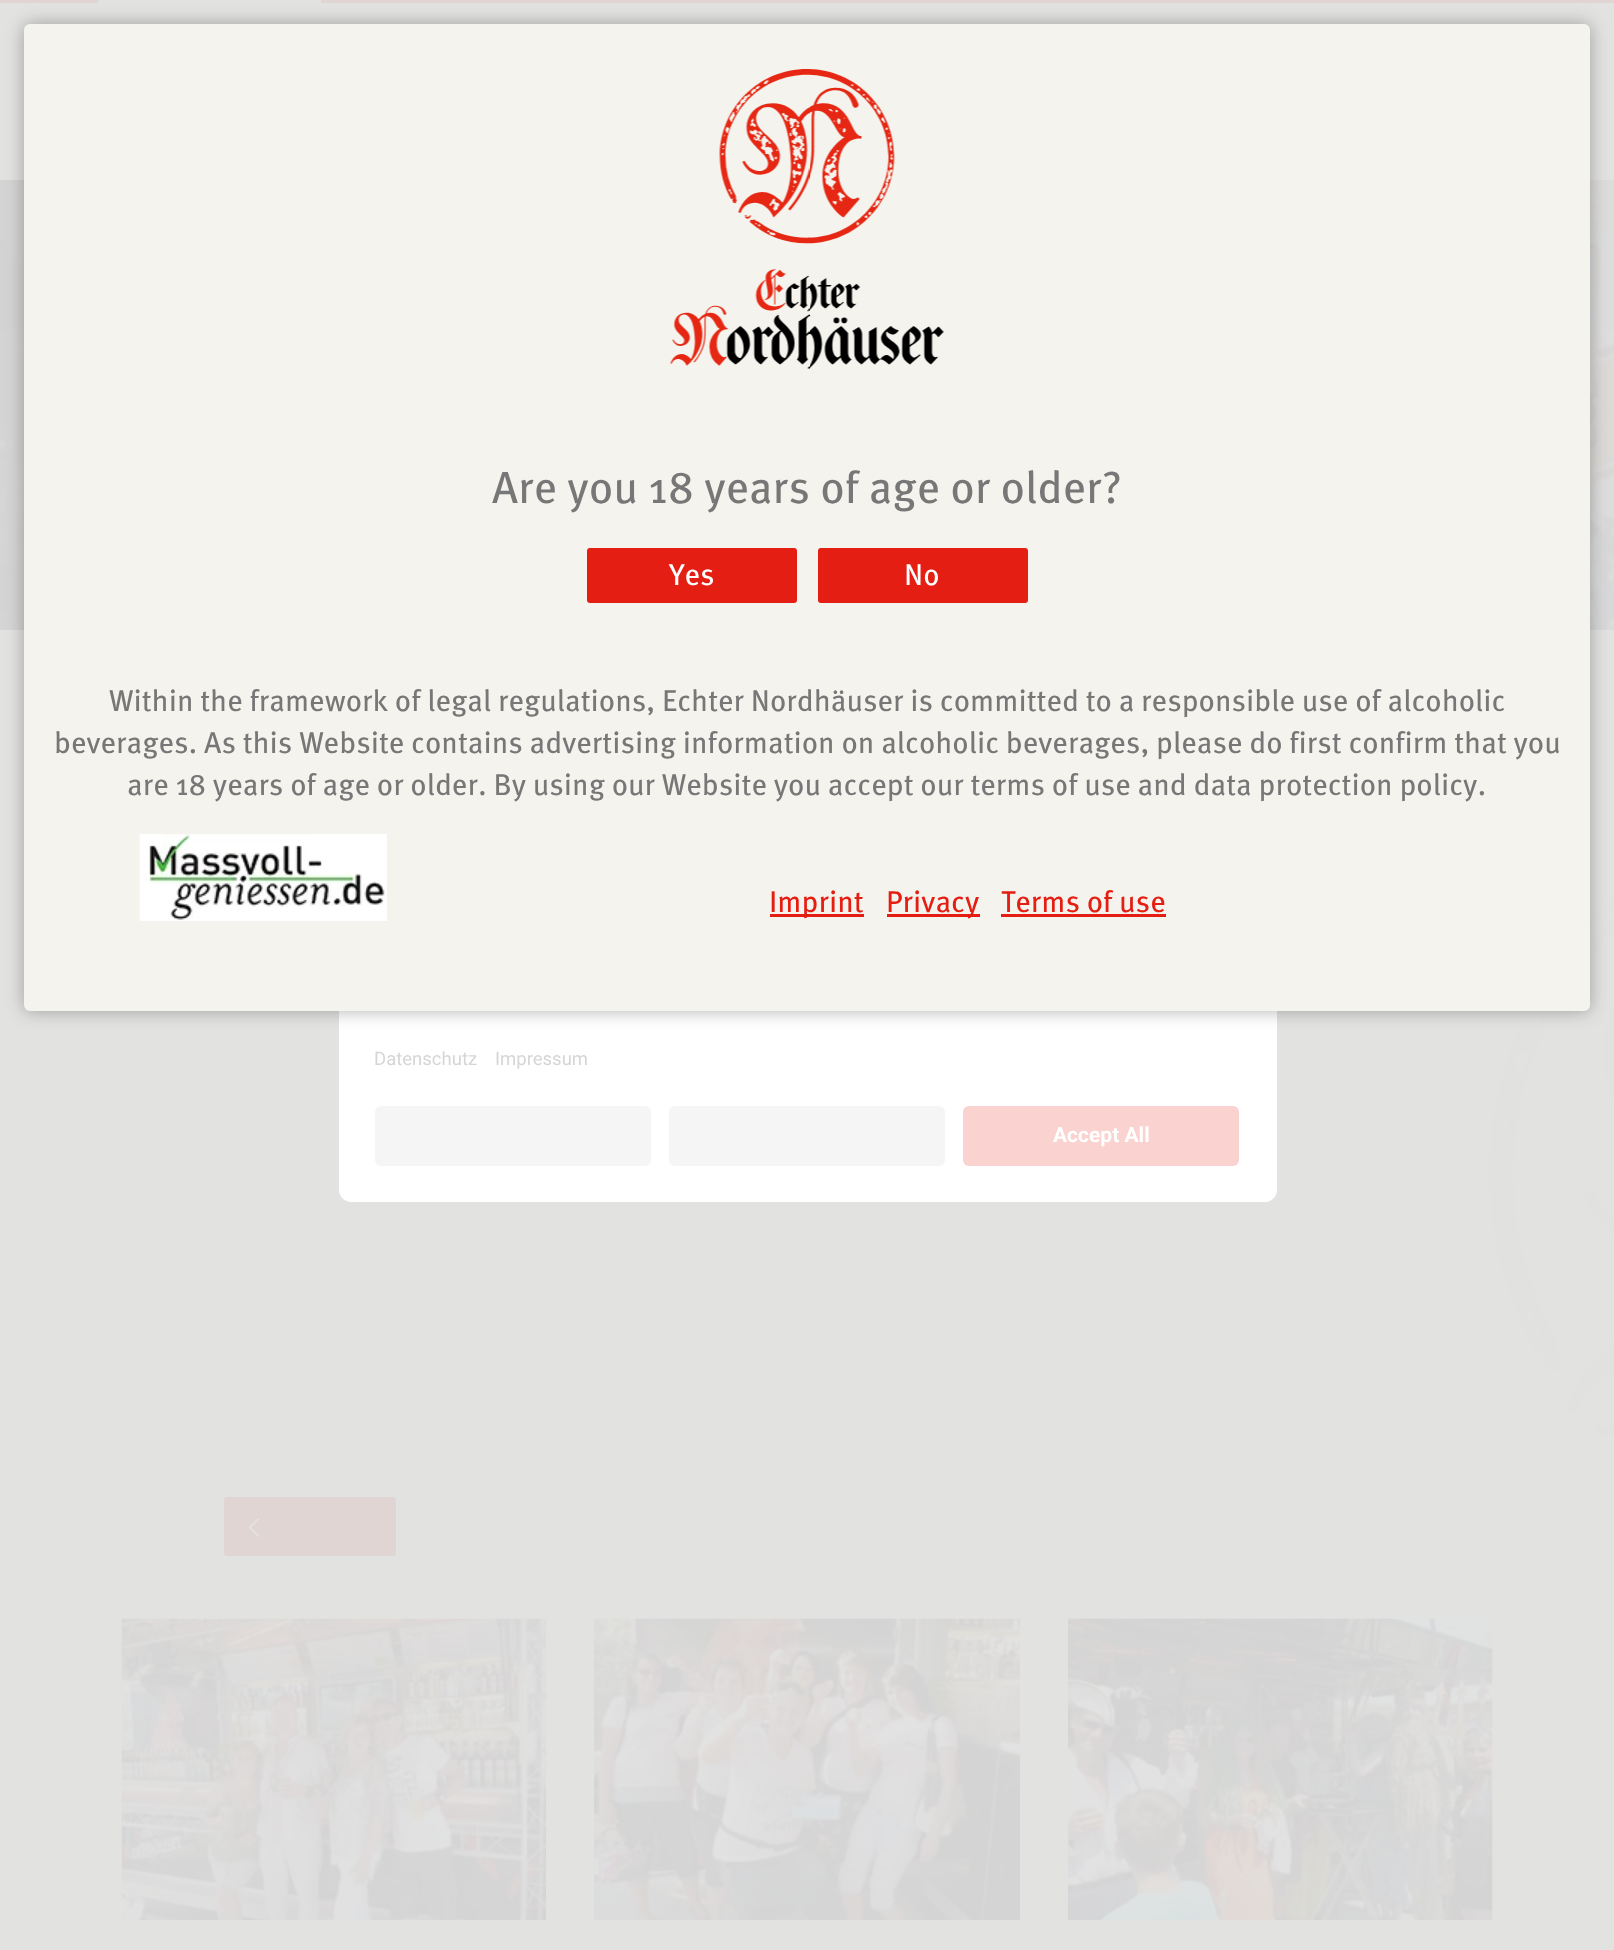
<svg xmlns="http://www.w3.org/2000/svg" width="1614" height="1950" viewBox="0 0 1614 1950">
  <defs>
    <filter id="blur1" x="-50%" y="-200%" width="200%" height="500%"><feGaussianBlur stdDeviation="9"/></filter>
  </defs>
  <rect width="100%" height="100%" fill="#e2e2e1"/>
  <rect x="0" y="0" width="1614" height="3" fill="#e1d5d4"/>
  <rect x="98" y="0" width="223" height="3" fill="#e2e2e2"/>
  <image x="0" y="180" width="1614" height="450" href="img1.png"/>
  <image x="1489" y="898" width="125" height="539" href="img2.png"/>
  <rect x="225" y="1498" width="170" height="57" rx="2" fill="#e1d5d4" stroke="#dfd5d4" stroke-width="2"/>
  <image x="249" y="1517" width="11" height="20" href="img3.png"/>
  <image x="121" y="1618" width="425" height="302" href="img4.png"/>
  <image x="594" y="1618" width="426" height="302" href="img5.png"/>
  <image x="1068" y="1618" width="425" height="302" href="img6.png"/>
  <rect x="339" y="1011" width="938" height="83" fill="#ffffff"/>
  <rect x="24" y="24" width="1566" height="987" rx="6" fill="#000000" fill-opacity="0.3" filter="url(#blur1)"/>
  <rect x="24" y="24" width="1566" height="987" rx="6" fill="#f5f3ed"/>
  <image x="670" y="69" width="274" height="300" href="img7.png"/>
  <text x="492" y="503" font-family="'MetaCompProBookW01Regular'" font-size="45" fill="#777777">Are you 18 years of age or older?</text>
  <rect x="587" y="548" width="210" height="55" rx="3" fill="#e41e13"/>
  <text x="669" y="585" font-family="'MetaCompProBookW01Regular'" font-size="30" fill="#ffffff">Yes</text>
  <rect x="818" y="548" width="210" height="55" rx="3" fill="#e41e13"/>
  <text x="904" y="585" font-family="'MetaCompProBookW01Regular'" font-size="30" fill="#ffffff">No</text>
  <text x="109" y="711" font-family="'MetaCompProBookW01Regular'" font-size="30" fill="#777777">Within the framework of legal regulations, Echter Nordhäuser is committed to a responsible use of alcoholic</text>
  <text x="54" y="753" font-family="'MetaCompProBookW01Regular'" font-size="30" fill="#777777">beverages. As this Website contains advertising information on alcoholic beverages, please do first confirm that you</text>
  <text x="127" y="795" font-family="'MetaCompProBookW01Regular'" font-size="30" fill="#777777">are 18 years of age or older. By using our Website you accept our terms of use and data protection policy.</text>
  <image x="139" y="834" width="248" height="87" href="img8.png"/>
  <rect x="770" y="914" width="94" height="3" fill="#e41e13"/>
  <text x="769" y="912" font-family="'MetaCompProBookW01Regular'" font-size="30" fill="#e41e13">Imprint</text>
  <rect x="887" y="914" width="93" height="3" fill="#e41e13"/>
  <text x="886" y="912" font-family="'MetaCompProBookW01Regular'" font-size="30" fill="#e41e13">Privacy</text>
  <text x="1001" y="912" font-family="'MetaCompProBookW01Regular'" font-size="30" fill="#e41e13">Terms of use</text>
  <rect x="1001" y="914" width="165" height="3" fill="#e41e13"/>
  <text x="374" y="1065" font-family="Roboto" font-size="18.5" fill="#d6d6d6">Datenschutz</text>
  <text x="495" y="1065" font-family="Roboto" font-size="18.5" fill="#d6d6d6">Impressum</text>
  <path d="M339 1094H1277V1190C1277 1196.5 1271.5 1202 1265 1202H351C344.5 1202 339 1196.5 339 1190Z" fill="#ffffff"/>
  <rect x="375" y="1106" width="276" height="60" rx="6" fill="#f5f5f5"/>
  <rect x="669" y="1106" width="276" height="60" rx="6" fill="#f5f5f5"/>
  <rect x="963" y="1106" width="276" height="60" rx="6" fill="#fad2d0"/>
  <text x="1053" y="1142" font-family="Roboto" font-size="21" font-weight="bold" fill="#ffffff">Accept All</text>
</svg>
